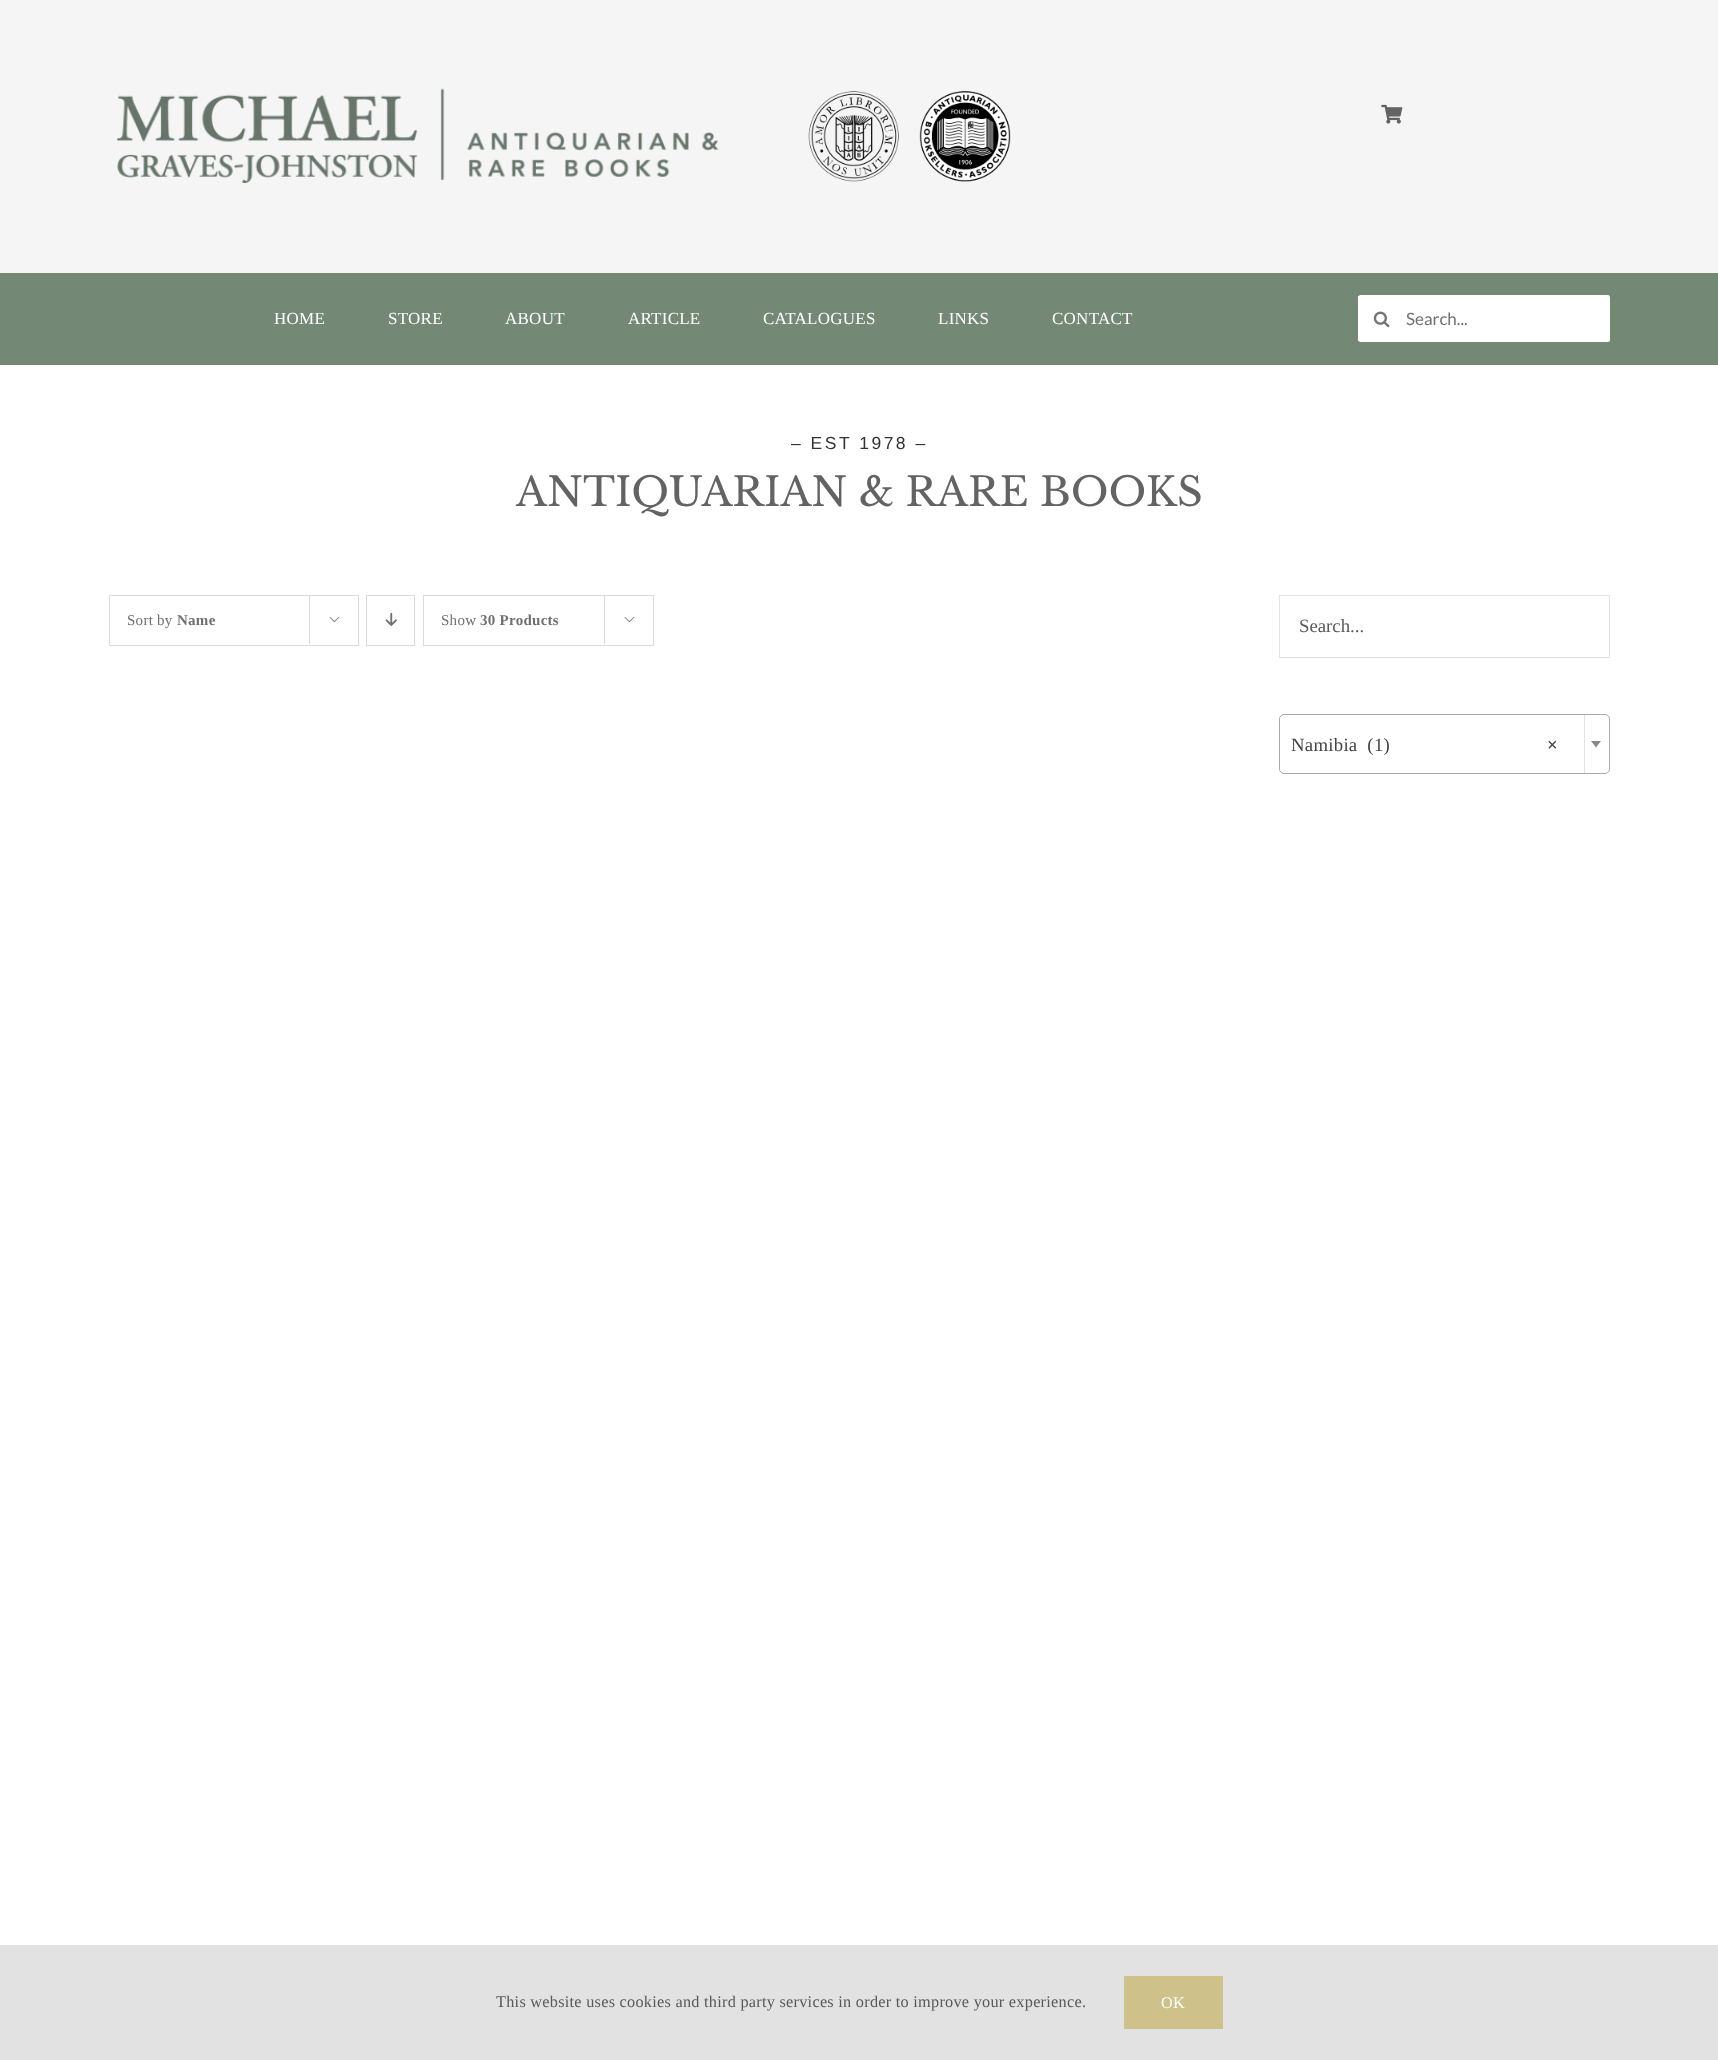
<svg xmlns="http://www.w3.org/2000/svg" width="1718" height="2060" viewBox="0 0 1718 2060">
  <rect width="100%" height="100%" fill="#ffffff"/>
  <rect x="0" y="0" width="1718" height="273" fill="#f5f5f5"/>
  <image x="117" y="88" width="602" height="95" href="img1.png"/>
  <image x="808" y="91" width="91" height="91" href="img2.png"/>
  <image x="919" y="91" width="92" height="91" href="img3.png"/>
  <image x="1381" y="104" width="22" height="20" href="img4.png"/>
  <rect x="0" y="273" width="1718" height="92" fill="#738976"/>
  <text x="274" y="324" font-family="Liberation Serif" font-size="17" letter-spacing="0.25" fill="#ffffff">HOME</text>
  <text x="388" y="324" font-family="Liberation Serif" font-size="17" letter-spacing="0.25" fill="#ffffff">STORE</text>
  <text x="505" y="324" font-family="Liberation Serif" font-size="17" letter-spacing="0.25" fill="#ffffff">ABOUT</text>
  <text x="628" y="324" font-family="Liberation Serif" font-size="17" letter-spacing="0.25" fill="#ffffff">ARTICLE</text>
  <text x="763" y="324" font-family="Liberation Serif" font-size="17" letter-spacing="0.25" fill="#ffffff">CATALOGUES</text>
  <text x="938" y="324" font-family="Liberation Serif" font-size="17" letter-spacing="0.25" fill="#ffffff">LINKS</text>
  <text x="1052" y="324" font-family="Liberation Serif" font-size="17" letter-spacing="0.25" fill="#ffffff">CONTACT</text>
  <path d="M1360 295H1608C1609 295 1610 296 1610 298V340C1610 341 1609 342 1608 342H1360C1359 342 1359 341 1359 340V298C1359 296 1359 295 1360 295Z" fill="#ffffff"/>
  <image x="1373" y="311" width="17" height="17" href="img5.png"/>
  <rect x="1358" y="296" width="1" height="45" fill="#ffffff"/>
  <text x="1406" y="325" font-family="Lato" font-size="17" fill="#707070">Search...</text>
  <text x="791" y="449" font-family="Liberation Sans" font-size="17.5" letter-spacing="2.5" fill="#333333">– EST 1978 –</text>
  <text x="516" y="506" font-family="Libre Baskerville" font-size="40" fill="#636363">ANTIQUARIAN &amp; RARE BOOKS</text>
  <rect x="109.5" y="595.5" width="249" height="50" fill="none" stroke="#dbdbdb"/>
  <text x="127" y="625" font-family="Liberation Serif" font-size="15" letter-spacing="0.27" fill="#707070">Sort by</text>
  <text x="177" y="625" font-family="Liberation Serif" font-size="15" font-weight="bold" letter-spacing="0.27" fill="#707070">Name</text>
  <rect x="309" y="595" width="1" height="49" fill="#dbdbdb"/>
  <image x="329" y="617" width="11" height="6" href="img6.png"/>
  <rect x="366.5" y="595.5" width="48" height="50" fill="none" stroke="#dbdbdb"/>
  <image x="385" y="612" width="12" height="14" href="img7.png"/>
  <rect x="423.5" y="595.5" width="230" height="50" fill="none" stroke="#dbdbdb"/>
  <text x="441" y="625" font-family="Liberation Serif" font-size="15" letter-spacing="0.27" fill="#707070">Show</text>
  <text x="480" y="625" font-family="Liberation Serif" font-size="15" font-weight="bold" letter-spacing="0.27" fill="#707070">30 Products</text>
  <rect x="604" y="595" width="1" height="49" fill="#dbdbdb"/>
  <image x="624" y="617" width="11" height="6" href="img6.png"/>
  <rect x="1279.5" y="595.5" width="330" height="62" fill="none" stroke="#e2e2e2"/>
  <text x="1299" y="632" font-family="Liberation Serif" font-size="18.75" fill="#595959">Search...</text>
  <rect x="1279.5" y="714.5" width="330" height="59" rx="4.5" fill="none" stroke="#aaaaaa"/>
  <text x="1291" y="751" font-family="Liberation Serif" font-size="18.75" letter-spacing="0.27" fill="#444444" xml:space="preserve">Namibia  (1)</text>
  <text x="1547" y="751" font-family="Liberation Serif" font-size="18.75" font-weight="bold" letter-spacing="0.27" fill="#444444">×</text>
  <rect x="1584" y="715" width="1" height="58" fill="#e2e2e2"/>
  <path d="M1591 741H1601L1596 747.5Z" fill="#888888"/>
  <rect x="0" y="1945" width="1718" height="115" fill="#e2e2e2"/>
  <text x="496" y="2007" font-family="Liberation Serif" font-size="16.25" letter-spacing="0.27" fill="#595959">This website uses cookies and third party services in order to improve your experience.</text>
  <rect x="1124" y="1976" width="99" height="53" fill="#cec18a"/>
  <text x="1161" y="2008" font-family="Liberation Serif" font-size="16.25" letter-spacing="0.27" fill="#ffffff">OK</text>
</svg>
